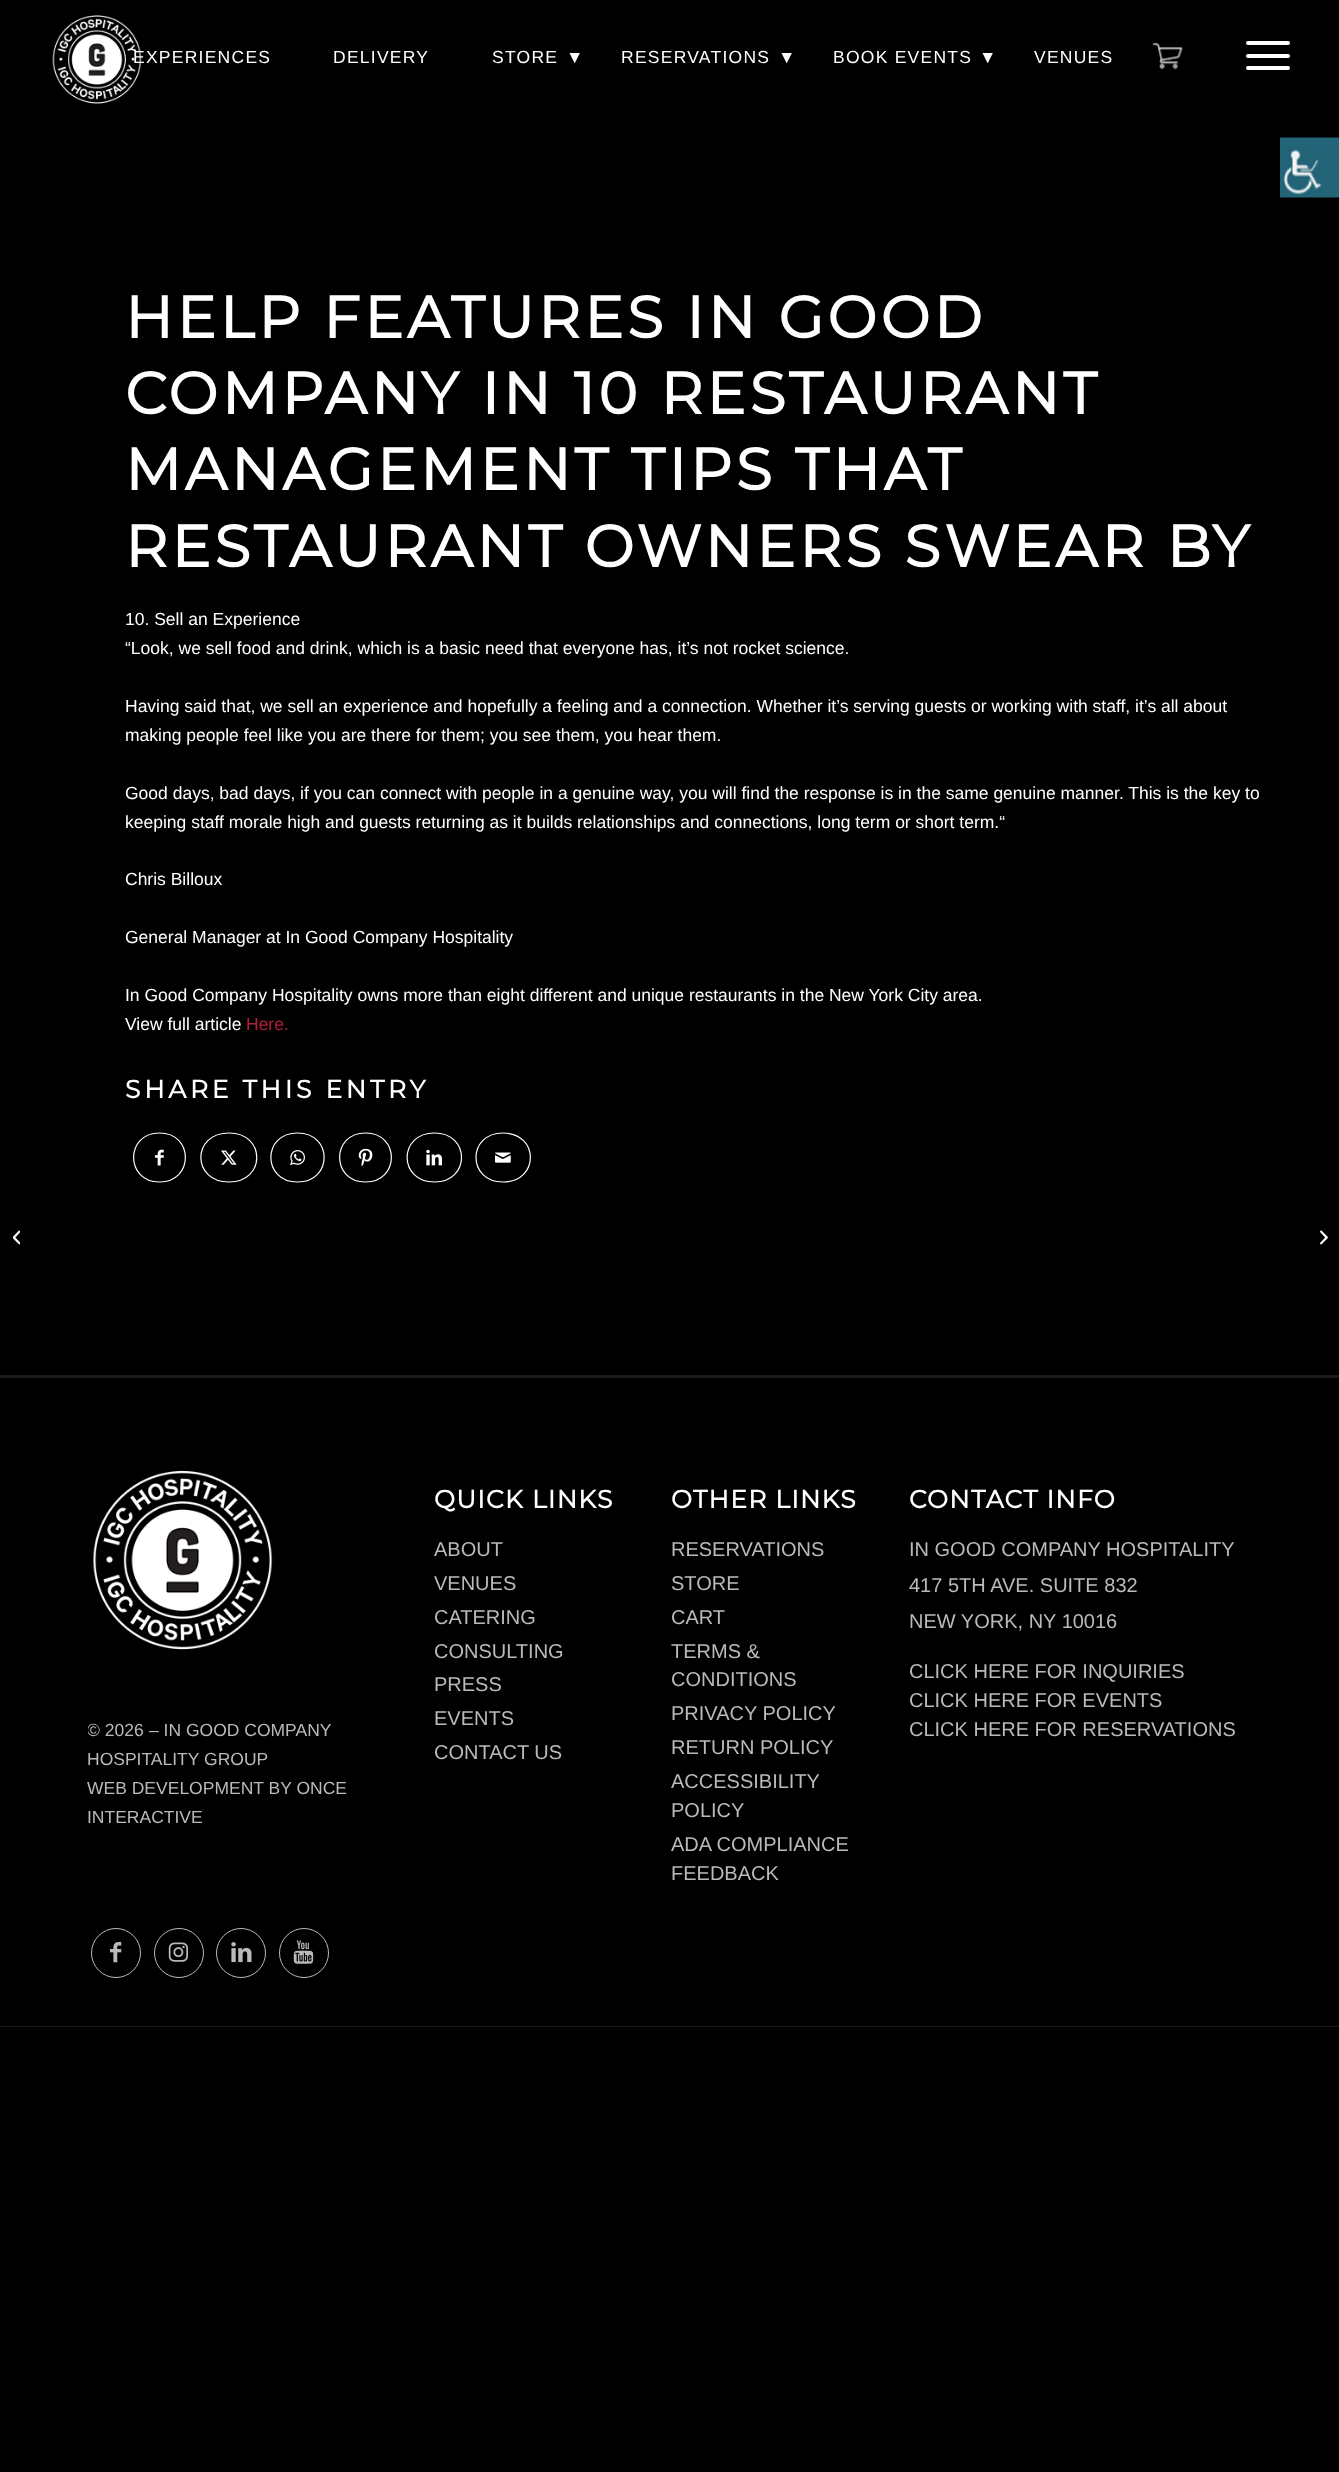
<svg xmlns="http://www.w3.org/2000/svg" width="1339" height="2472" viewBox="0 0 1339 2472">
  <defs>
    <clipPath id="clip1"><rect x="88" y="1701" width="325" height="145"/></clipPath>
  </defs>
  <rect width="100%" height="100%" fill="#000000"/>
  <image x="52" y="15" width="90" height="89" href="img1.png"/>
  <rect x="1246" y="54" width="44" height="4" rx="2" fill="#ffffff"/>
  <rect x="1246" y="41" width="44" height="4" rx="2" fill="#ffffff"/>
  <rect x="1246" y="66" width="44" height="4" rx="2" fill="#ffffff"/>
  <text x="133" y="63" font-family="Liberation Sans" font-size="17.5" letter-spacing="1.25" fill="#ffffff">EXPERIENCES</text>
  <text x="333" y="63" font-family="Liberation Sans" font-size="17.5" letter-spacing="1.25" fill="#ffffff">DELIVERY</text>
  <text x="492" y="63" font-family="Liberation Sans" font-size="17.5" letter-spacing="1.25" fill="#ffffff">STORE</text>
  <text x="566" y="63" font-family="Liberation Sans" font-size="17.5" letter-spacing="1.25" fill="#ffffff">▼</text>
  <text x="621" y="63" font-family="Liberation Sans" font-size="17.5" letter-spacing="1.25" fill="#ffffff">RESERVATIONS</text>
  <text x="778" y="63" font-family="Liberation Sans" font-size="17.5" letter-spacing="1.25" fill="#ffffff">▼</text>
  <text x="833" y="63" font-family="Liberation Sans" font-size="17.5" letter-spacing="1.25" fill="#ffffff">BOOK EVENTS</text>
  <text x="979" y="63" font-family="Liberation Sans" font-size="17.5" letter-spacing="1.25" fill="#ffffff">▼</text>
  <text x="1034" y="63" font-family="Liberation Sans" font-size="17.5" letter-spacing="1.25" fill="#ffffff">VENUES</text>
  <image x="1152" y="42" width="31" height="28" href="img2.png"/>
  <image x="13" y="1230" width="7" height="15" href="img3.png"/>
  <text x="125" y="338" font-family="Montserrat" font-size="58.75" font-weight="bold" letter-spacing="3.75" fill="#ffffff">HELP FEATURES IN GOOD</text>
  <text x="125" y="414" font-family="Montserrat" font-size="58.75" font-weight="bold" letter-spacing="3.75" fill="#ffffff">COMPANY IN 10 RESTAURANT</text>
  <text x="125" y="490" font-family="Montserrat" font-size="58.75" font-weight="bold" letter-spacing="3.75" fill="#ffffff">MANAGEMENT TIPS THAT</text>
  <text x="125" y="567" font-family="Montserrat" font-size="58.75" font-weight="bold" letter-spacing="3.75" fill="#ffffff">RESTAURANT OWNERS SWEAR BY</text>
  <text x="125" y="625" font-family="Liberation Sans" font-size="17.5" fill="#ffffff">10. Sell an Experience</text>
  <text x="125" y="654" font-family="Liberation Sans" font-size="17.5" fill="#ffffff">“Look, we sell food and drink, which is a basic need that everyone has, it’s not rocket science.</text>
  <text x="125" y="712" font-family="Liberation Sans" font-size="17.5" fill="#ffffff">Having said that, we sell an experience and hopefully a feeling and a connection. Whether it’s serving guests or working with staff, it’s all about</text>
  <text x="125" y="741" font-family="Liberation Sans" font-size="17.5" fill="#ffffff">making people feel like you are there for them; you see them, you hear them.</text>
  <text x="125" y="799" font-family="Liberation Sans" font-size="17.5" fill="#ffffff">Good days, bad days, if you can connect with people in a genuine way, you will find the response is in the same genuine manner. This is the key to</text>
  <text x="125" y="828" font-family="Liberation Sans" font-size="17.5" fill="#ffffff">keeping staff morale high and guests returning as it builds relationships and connections, long term or short term.“</text>
  <text x="125" y="885" font-family="Liberation Sans" font-size="17.5" fill="#ffffff">Chris Billoux</text>
  <text x="125" y="943" font-family="Liberation Sans" font-size="17.5" fill="#ffffff">General Manager at In Good Company Hospitality</text>
  <text x="125" y="1001" font-family="Liberation Sans" font-size="17.5" fill="#ffffff">In Good Company Hospitality owns more than eight different and unique restaurants in the New York City area.</text>
  <text x="125" y="1030" font-family="Liberation Sans" font-size="17.5" fill="#ffffff">View full article</text>
  <text x="246" y="1030" font-family="Liberation Sans" font-size="17.5" fill="#b31e39">Here.</text>
  <text x="125" y="1098" font-family="Montserrat" font-size="25" font-weight="bold" letter-spacing="3.75" fill="#ffffff">SHARE THIS ENTRY</text>
  <path d="M159.5 1133C194 1133 194 1182 159.5 1182C125 1182 125 1133 159.5 1133Z" fill="none" stroke="#ffffff" stroke-width="1.2"/>
  <image x="155" y="1149" width="9" height="17" href="img4.png"/>
  <path d="M229 1133C266 1133 266 1182 229 1182C191.5 1182 191.5 1133 229 1133Z" fill="none" stroke="#ffffff" stroke-width="1.2"/>
  <image x="221" y="1150" width="16" height="15" href="img5.png"/>
  <path d="M297.5 1133C333 1133 333 1182 297.5 1182C262 1182 262 1133 297.5 1133Z" fill="none" stroke="#ffffff" stroke-width="1.2"/>
  <image x="290" y="1150" width="15" height="16" href="img6.png"/>
  <path d="M365.5 1133C400 1133 400 1182 365.5 1182C331 1182 331 1133 365.5 1133Z" fill="none" stroke="#ffffff" stroke-width="1.2"/>
  <image x="358" y="1148" width="15" height="19" href="img7.png"/>
  <path d="M434.5 1133C470.5 1133 470.5 1182 434.5 1182C398 1182 398 1133 434.5 1133Z" fill="none" stroke="#ffffff" stroke-width="1.2"/>
  <image x="426" y="1149" width="16" height="17" href="img8.png"/>
  <path d="M503 1133C539.5 1133 539.5 1182 503 1182C467 1182 467 1133 503 1133Z" fill="none" stroke="#ffffff" stroke-width="1.2"/>
  <image x="495" y="1152" width="16" height="11" href="img9.png"/>
  <rect x="0" y="1375" width="1339" height="3" fill="#1a1a1a"/>
  <text x="434" y="1508" font-family="Montserrat" font-size="25" font-weight="bold" letter-spacing="1.25" fill="#ffffff">QUICK LINKS</text>
  <text x="434" y="1556" font-family="Liberation Sans" font-size="20" fill="#bababa">ABOUT</text>
  <text x="434" y="1590" font-family="Liberation Sans" font-size="20" fill="#bababa">VENUES</text>
  <text x="434" y="1624" font-family="Liberation Sans" font-size="20" fill="#bababa">CATERING</text>
  <text x="434" y="1658" font-family="Liberation Sans" font-size="20" fill="#bababa">CONSULTING</text>
  <text x="434" y="1691" font-family="Liberation Sans" font-size="20" fill="#bababa">PRESS</text>
  <text x="434" y="1725" font-family="Liberation Sans" font-size="20" fill="#bababa">EVENTS</text>
  <text x="434" y="1759" font-family="Liberation Sans" font-size="20" fill="#bababa">CONTACT US</text>
  <text x="671" y="1508" font-family="Montserrat" font-size="25" font-weight="bold" letter-spacing="1.25" fill="#ffffff">OTHER LINKS</text>
  <text x="671" y="1556" font-family="Liberation Sans" font-size="20" fill="#bababa">RESERVATIONS</text>
  <text x="671" y="1590" font-family="Liberation Sans" font-size="20" fill="#bababa">STORE</text>
  <text x="671" y="1624" font-family="Liberation Sans" font-size="20" fill="#bababa">CART</text>
  <text x="671" y="1658" font-family="Liberation Sans" font-size="20" fill="#bababa">TERMS &amp;</text>
  <text x="671" y="1686" font-family="Liberation Sans" font-size="20" fill="#bababa">CONDITIONS</text>
  <text x="671" y="1720" font-family="Liberation Sans" font-size="20" fill="#bababa">PRIVACY POLICY</text>
  <text x="671" y="1754" font-family="Liberation Sans" font-size="20" fill="#bababa">RETURN POLICY</text>
  <text x="671" y="1788" font-family="Liberation Sans" font-size="20" fill="#bababa">ACCESSIBILITY</text>
  <text x="671" y="1817" font-family="Liberation Sans" font-size="20" fill="#bababa">POLICY</text>
  <text x="671" y="1851" font-family="Liberation Sans" font-size="20" fill="#bababa">ADA COMPLIANCE</text>
  <text x="671" y="1880" font-family="Liberation Sans" font-size="20" fill="#bababa">FEEDBACK</text>
  <text x="909" y="1508" font-family="Montserrat" font-size="25" font-weight="bold" letter-spacing="1.25" fill="#ffffff">CONTACT INFO</text>
  <text x="909" y="1556" font-family="Liberation Sans" font-size="20" fill="#bababa">IN GOOD COMPANY HOSPITALITY</text>
  <text x="909" y="1592" font-family="Liberation Sans" font-size="20" fill="#bababa">417 5TH AVE. SUITE 832</text>
  <text x="909" y="1628" font-family="Liberation Sans" font-size="20" fill="#bababa">NEW YORK, NY 10016</text>
  <text x="909" y="1678" font-family="Liberation Sans" font-size="20" fill="#bababa">CLICK HERE FOR INQUIRIES</text>
  <text x="909" y="1707" font-family="Liberation Sans" font-size="20" fill="#bababa">CLICK HERE FOR EVENTS</text>
  <text x="909" y="1736" font-family="Liberation Sans" font-size="20" fill="#bababa">CLICK HERE FOR RESERVATIONS</text>
  <image x="92" y="1470" width="181" height="180" href="img10.png"/>
  <g clip-path="url(#clip1)">
    <text x="87" y="1736" font-family="Liberation Sans" font-size="17.5" fill="#bababa">© 2026</text>
  </g>
  <text x="149" y="1736" font-family="Liberation Sans" font-size="17.5" fill="#bababa">– IN GOOD COMPANY</text>
  <text x="87" y="1765" font-family="Liberation Sans" font-size="17.5" fill="#bababa">HOSPITALITY GROUP</text>
  <text x="87" y="1794" font-family="Liberation Sans" font-size="17.5" fill="#bababa">WEB DEVELOPMENT BY ONCE</text>
  <text x="87" y="1823" font-family="Liberation Sans" font-size="17.5" fill="#bababa">INTERACTIVE</text>
  <circle cx="116" cy="1953" r="24.5" fill="none" stroke="#bababa"/>
  <image x="110" y="1942" width="12" height="21" href="img11.png"/>
  <circle cx="179" cy="1953" r="24.5" fill="none" stroke="#bababa"/>
  <image x="168" y="1942" width="21" height="20" href="img12.png"/>
  <circle cx="241" cy="1953" r="24.5" fill="none" stroke="#bababa"/>
  <image x="231" y="1942" width="21" height="21" href="img13.png"/>
  <circle cx="304" cy="1953" r="24.5" fill="none" stroke="#bababa"/>
  <image x="293" y="1940" width="21" height="24" href="img14.png"/>
  <rect x="0" y="2026" width="1339" height="1" fill="#1a1a1a"/>
  <image x="1320" y="1230" width="8" height="15" href="img15.png"/>
  <image x="1280" y="137" width="59" height="61" href="img16.png"/>
</svg>
